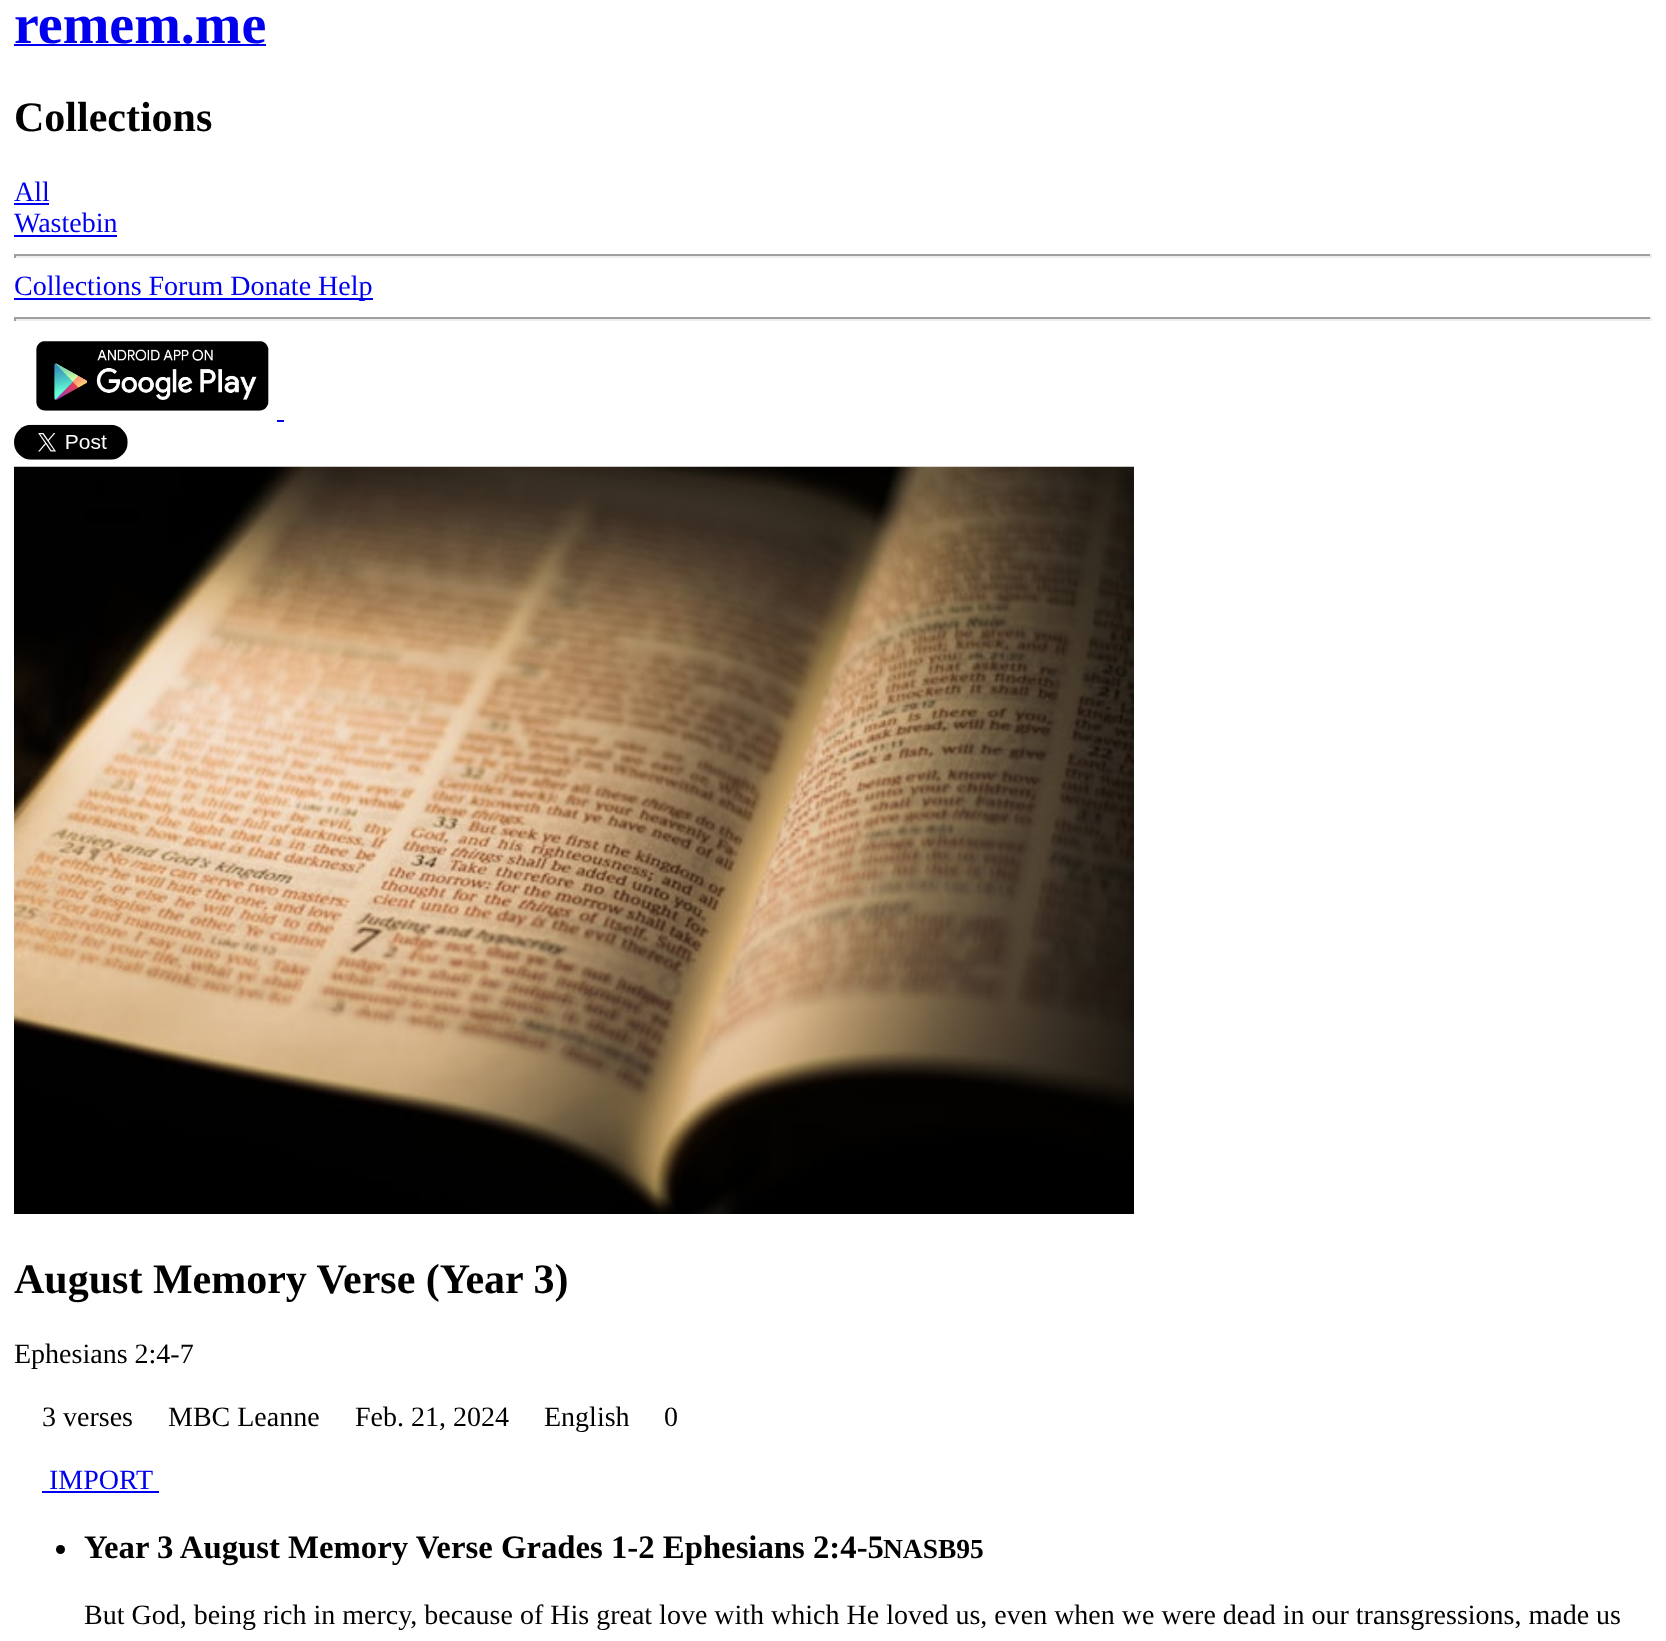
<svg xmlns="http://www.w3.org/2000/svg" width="1666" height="1641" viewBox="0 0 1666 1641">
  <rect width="100%" height="100%" fill="#ffffff"/>
  <text x="14" y="43" font-family="Liberation Serif" font-size="56" font-weight="bold" fill="#0000ee">remem.me</text>
  <rect x="14" y="44" width="252" height="2" fill="#0000ee"/>
  <text x="14" y="131" font-family="Liberation Serif" font-size="42" font-weight="bold" fill="#000000">Collections</text>
  <text x="14" y="201" font-family="Liberation Serif" font-size="28" fill="#0000ee">All</text>
  <rect x="14" y="203" width="35" height="2" fill="#0000ee"/>
  <text x="14" y="232" font-family="Liberation Serif" font-size="28" fill="#0000ee">Wastebin</text>
  <rect x="14" y="235" width="103" height="2" fill="#0000ee"/>
  <rect x="14" y="254" width="1638" height="2" fill="#9f9f9f"/>
  <rect x="1650" y="254" width="2" height="4" fill="#eeeeee"/>
  <rect x="14" y="256" width="1638" height="2" fill="#eeeeee"/>
  <rect x="14" y="254" width="2" height="4" fill="#9f9f9f"/>
  <rect x="14" y="298" width="359" height="2" fill="#0000ee"/>
  <text x="14" y="295" font-family="Liberation Serif" font-size="28" fill="#0000ee">Collections Forum Donate Help</text>
  <rect x="14" y="317" width="1638" height="2" fill="#9f9f9f"/>
  <rect x="1650" y="317" width="2" height="4" fill="#eeeeee"/>
  <rect x="14" y="319" width="1638" height="2" fill="#eeeeee"/>
  <rect x="14" y="317" width="2" height="4" fill="#9f9f9f"/>
  <image x="36" y="341" width="233" height="70" href="img1.png"/>
  <rect x="277" y="420" width="7" height="2" fill="#0000ee"/>
  <image x="14" y="424" width="114" height="36" href="img2.png"/>
  <image x="14" y="466" width="1120" height="748" href="img3.png"/>
  <text x="14" y="1293" font-family="Liberation Serif" font-size="42" font-weight="bold" fill="#000000">August Memory Verse (Year 3)</text>
  <text x="14" y="1363" font-family="Liberation Serif" font-size="28" fill="#000000">Ephesians 2:4-7</text>
  <text x="42" y="1426" font-family="Liberation Serif" font-size="28" fill="#000000">3 verses</text>
  <text x="168" y="1426" font-family="Liberation Serif" font-size="28" fill="#000000">MBC Leanne</text>
  <text x="355" y="1426" font-family="Liberation Serif" font-size="28" fill="#000000">Feb. 21, 2024</text>
  <text x="544" y="1426" font-family="Liberation Serif" font-size="28" fill="#000000">English</text>
  <text x="664" y="1426" font-family="Liberation Serif" font-size="28" fill="#000000">0</text>
  <text x="49" y="1489" font-family="Liberation Serif" font-size="28" fill="#0000ee">IMPORT</text>
  <rect x="42" y="1491" width="117" height="2" fill="#0000ee"/>
  <circle cx="60.5" cy="1549.5" r="4.5" fill="#000000"/>
  <text x="84" y="1558" font-family="Liberation Serif" font-size="32.75" font-weight="bold" fill="#000000">Year 3 August Memory Verse Grades 1-2 Ephesians 2:4-5</text>
  <text x="883" y="1558" font-family="Liberation Serif" font-size="27.5" font-weight="bold" fill="#000000">NASB95</text>
  <text x="84" y="1624" font-family="Liberation Serif" font-size="28" fill="#000000">But God, being rich in mercy, because of His great love with which He loved us, even when we were dead in our transgressions, made us</text>
</svg>
